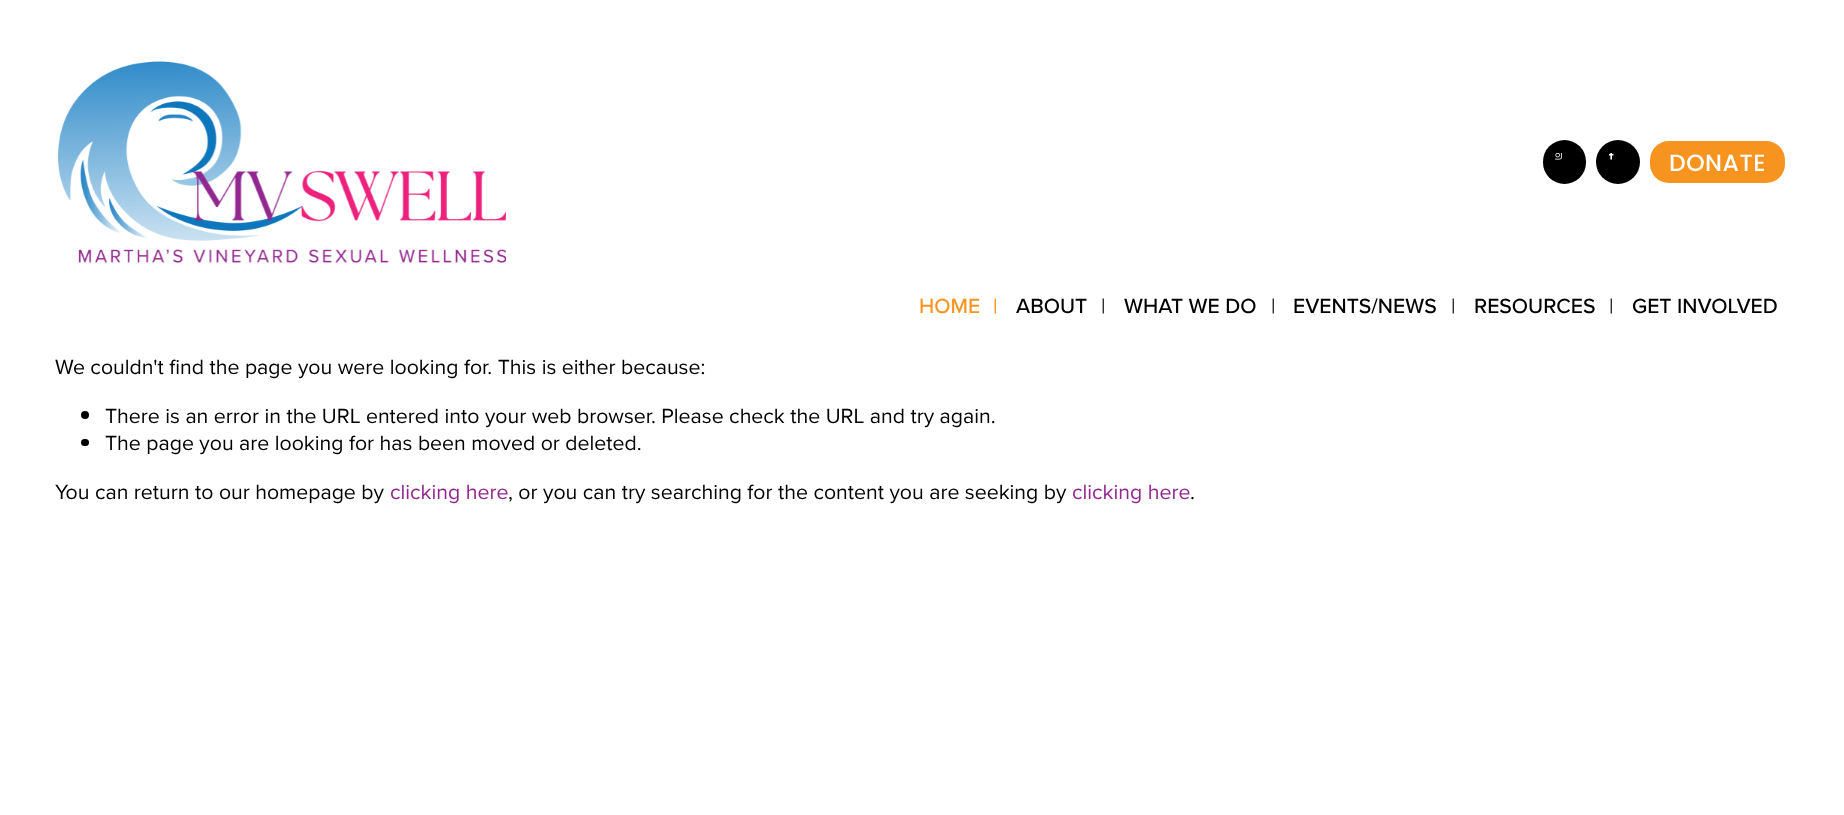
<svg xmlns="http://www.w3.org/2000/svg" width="1844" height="815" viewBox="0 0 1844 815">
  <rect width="100%" height="100%" fill="#ffffff"/>
  <rect x="1543" y="140" width="43" height="44" rx="21.5" fill="#000000"/>
  <image x="1555" y="153" width="8" height="7" href="img1.png"/>
  <circle cx="1618" cy="162" r="22" fill="#000000"/>
  <image x="1609" y="153" width="5" height="7" href="img2.png"/>
  <rect x="1650" y="141" width="135" height="42" rx="19" fill="#f7941f"/>
  <text x="1669" y="171" font-family="Poppins" font-size="23.5" font-weight="500" letter-spacing="0.5" fill="#ffffff">DONATE</text>
  <image x="58" y="61" width="448" height="202" href="img3.png"/>
  <text x="919" y="313" font-family="Proxima Nova" font-size="21.25" font-weight="500" fill="#f8941f">HOME</text>
  <text x="993" y="313" font-family="Proxima Nova" font-size="21.25" font-weight="500" fill="#f8941f">|</text>
  <text x="1016" y="313" font-family="Proxima Nova" font-size="21.25" font-weight="500" fill="#000000">ABOUT</text>
  <text x="1101" y="313" font-family="Proxima Nova" font-size="21.25" fill="#000000">|</text>
  <text x="1124" y="313" font-family="Proxima Nova" font-size="21.25" font-weight="500" fill="#000000">WHAT WE DO</text>
  <text x="1271" y="313" font-family="Proxima Nova" font-size="21.25" fill="#000000">|</text>
  <text x="1293" y="313" font-family="Proxima Nova" font-size="21.25" font-weight="500" fill="#000000">EVENTS/NEWS</text>
  <text x="1451" y="313" font-family="Proxima Nova" font-size="21.25" fill="#000000">|</text>
  <text x="1474" y="313" font-family="Proxima Nova" font-size="21.25" font-weight="500" fill="#000000">RESOURCES</text>
  <text x="1609" y="313" font-family="Proxima Nova" font-size="21.25" fill="#000000">|</text>
  <text x="1632" y="313" font-family="Proxima Nova" font-size="21.25" font-weight="500" fill="#000000">GET INVOLVED</text>
  <text x="55" y="374" font-family="Proxima Nova" font-size="21.25" fill="#000000">We couldn't find the page you were looking for. This is either because:</text>
  <circle cx="85" cy="415" r="4" fill="#000000"/>
  <text x="105" y="423" font-family="Proxima Nova" font-size="21.25" fill="#000000">There is an error in the URL entered into your web browser. Please check the URL and try again.</text>
  <rect x="81" y="439" width="8" height="7" rx="3.5" fill="#000000"/>
  <text x="105" y="450" font-family="Proxima Nova" font-size="21.25" fill="#000000">The page you are looking for has been moved or deleted.</text>
  <text x="55" y="499" font-family="Proxima Nova" font-size="21.25" fill="#000000">You can return to our homepage by</text>
  <text x="390" y="499" font-family="Proxima Nova" font-size="21.25" fill="#92288e">clicking here</text>
  <text x="508" y="499" font-family="Proxima Nova" font-size="21.25" fill="#000000">, or you can try searching for the content you are seeking by</text>
  <text x="1072" y="499" font-family="Proxima Nova" font-size="21.25" fill="#92288e">clicking here</text>
  <text x="1190" y="499" font-family="Proxima Nova" font-size="21.25" fill="#000000">.</text>
</svg>
